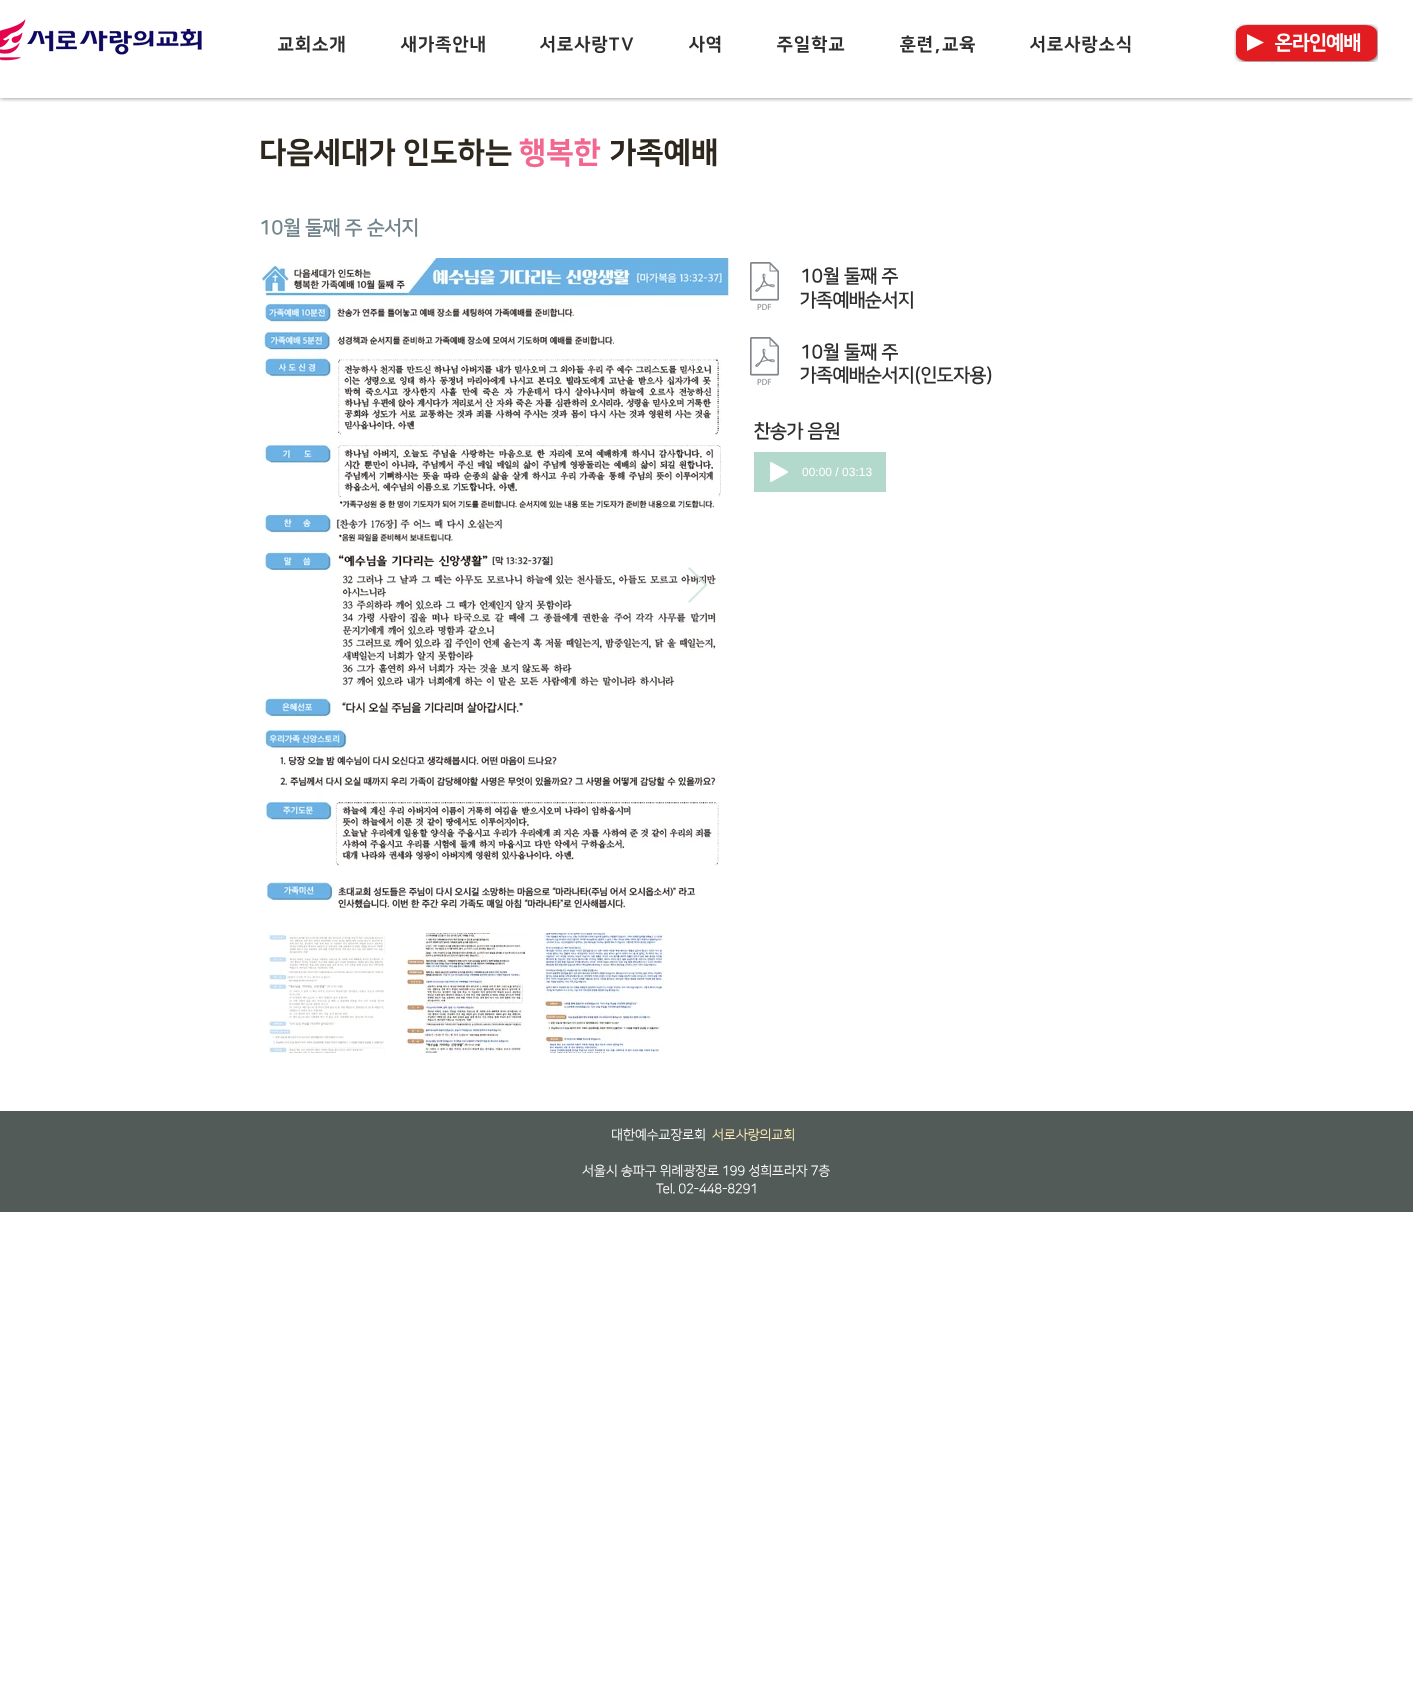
<svg xmlns="http://www.w3.org/2000/svg" width="1413" height="1681" viewBox="0 0 1413 1681">
  <defs>
    <clipPath id="clip1"><rect x="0" y="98" width="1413" height="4"/></clipPath>
    <filter id="blur1" x="-50%" y="-200%" width="200%" height="500%"><feGaussianBlur stdDeviation="2.5"/></filter>
  </defs>
  <rect width="100%" height="100%" fill="#ffffff"/>
  <g clip-path="url(#clip1)">
    <rect x="0" y="0" width="1413" height="98" fill="#000000" fill-opacity="0.5" filter="url(#blur1)"/>
  </g>
  <image x="0" y="19" width="202" height="42" href="img1.png"/>
  <text x="278" y="50" font-family="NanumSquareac" font-size="18" font-weight="800" letter-spacing="1.75" fill="#2f2e2e">교회소개</text>
  <text x="401" y="50" font-family="NanumSquareac" font-size="18" font-weight="800" letter-spacing="1.75" fill="#2f2e2e">새가족안내</text>
  <text x="540" y="50" font-family="NanumSquareac" font-size="18" font-weight="800" letter-spacing="1.75" fill="#2f2e2e">서로사랑TV</text>
  <text x="689" y="50" font-family="NanumSquareac" font-size="18" font-weight="800" letter-spacing="1.75" fill="#2f2e2e">사역</text>
  <text x="777" y="50" font-family="NanumSquareac" font-size="18" font-weight="800" letter-spacing="1.75" fill="#2f2e2e">주일학교</text>
  <text x="900" y="50" font-family="NanumSquareac" font-size="18" font-weight="800" letter-spacing="1.75" fill="#2f2e2e">훈련,교육</text>
  <text x="1030" y="50" font-family="NanumSquareac" font-size="18" font-weight="800" letter-spacing="1.75" fill="#2f2e2e">서로사랑소식</text>
  <image x="1234" y="24" width="144" height="38" href="img2.png"/>
  <path d="M1247 34L1264 42.5L1247 51Z" fill="#ffffff"/>
  <text x="1275" y="49" font-family="NanumSquareac" font-size="20" font-weight="800" fill="#ffffff">온라인예배</text>
  <text x="259" y="162" font-family="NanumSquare" font-size="30" font-weight="800" fill="#2d271d">다음세대가 인도하는</text>
  <text x="519" y="162" font-family="NanumSquare" font-size="30" font-weight="800" fill="#f2668f">행복한</text>
  <text x="609" y="162" font-family="NanumSquare" font-size="30" font-weight="800" fill="#2d271d">가족예배</text>
  <text x="259" y="234" font-family="NanumSquareac" font-size="20" font-weight="bold" fill="#72858c">10월 둘째 주 순서지</text>
  <image x="259" y="258" width="473" height="657" href="img3.png"/>
  <path d="M688 568.5L689.5 567L707.5 585L689.5 603L688 601.5L704.5 585Z" fill="#d0e5de" fill-opacity="0.9"/>
  <image x="268" y="933" width="119" height="120" href="img4.png"/>
  <image x="406" y="933" width="120" height="120" href="img5.png"/>
  <image x="544" y="933" width="120" height="120" href="img6.png"/>
  <image x="750" y="262" width="29" height="48" href="img7.png"/>
  <text x="800" y="282" font-family="NanumSquareac" font-size="19" font-weight="bold" fill="#2f2e2e">10월 둘째 주</text>
  <text x="800" y="306" font-family="NanumSquareac" font-size="19" font-weight="bold" fill="#2f2e2e">가족예배순서지</text>
  <image x="750" y="337" width="29" height="48" href="img7.png"/>
  <text x="800" y="358" font-family="NanumSquareac" font-size="19" font-weight="bold" fill="#2f2e2e">10월 둘째 주</text>
  <text x="800" y="381" font-family="NanumSquareac" font-size="19" font-weight="bold" fill="#2f2e2e">가족예배순서지(인도자용)</text>
  <text x="754" y="437" font-family="NanumSquareac" font-size="19" font-weight="bold" fill="#2f2e2e">찬송가 음원</text>
  <rect x="754" y="452" width="132" height="40" fill="#b3d9cc"/>
  <image x="770" y="462" width="18" height="20" href="img8.png"/>
  <text x="802" y="476" font-family="Liberation Sans" font-size="12" fill="#ffffff">00:00 / 03:13</text>
  <rect x="0" y="1111" width="1413" height="101" fill="#535b58"/>
  <text x="611" y="1139" font-family="NanumSquare" font-size="13" font-weight="bold" fill="#ffffff">대한예수교장로회</text>
  <text x="712" y="1139" font-family="NanumSquare" font-size="13" font-weight="bold" fill="#ffeeb8">서로사랑의교회</text>
  <text x="582" y="1175" font-family="NanumSquare" font-size="13" font-weight="bold" fill="#ffffff">서울시 송파구 위례광장로 199 성희프라자 7층</text>
  <text x="656" y="1193" font-family="NanumSquare" font-size="13" font-weight="bold" fill="#ffffff">Tel. 02-448-8291</text>
</svg>
